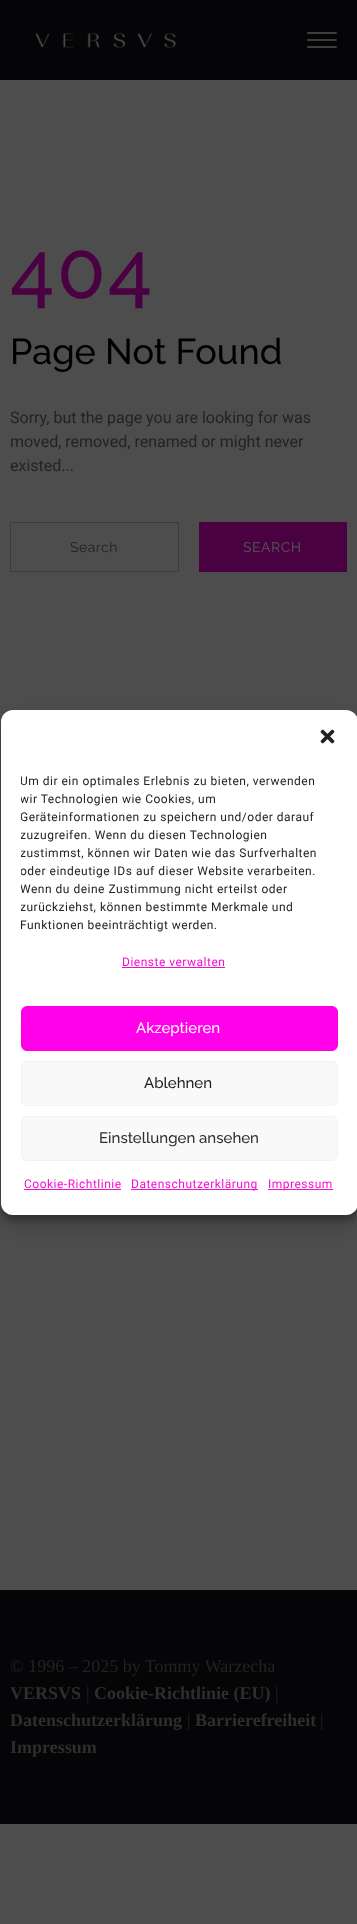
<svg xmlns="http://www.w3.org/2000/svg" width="357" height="1924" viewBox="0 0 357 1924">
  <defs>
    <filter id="blur1" x="-50%" y="-200%" width="200%" height="500%"><feGaussianBlur stdDeviation="3"/></filter>
    <filter id="blur2" x="-50%" y="-200%" width="200%" height="500%"><feGaussianBlur stdDeviation="10"/></filter>
    <clipPath id="clip1"><rect x="21" y="772" width="317" height="167"/></clipPath>
  </defs>
  <rect width="100%" height="100%" fill="#4d4d4d"/>
  <rect x="0" y="0" width="357" height="80" fill="#050507"/>
  <image x="35" y="33" width="141" height="15" href="img1.png"/>
  <rect x="307" y="46" width="30" height="2" rx="1" fill="#3d3d3d"/>
  <rect x="307" y="32" width="30" height="2" rx="1" fill="#3d3d3d"/>
  <rect x="307" y="39" width="30" height="2" rx="1" fill="#3d3d3d"/>
  <text x="10" y="298" font-family="Raleway" font-size="80" font-weight="500" letter-spacing="2" fill="#490142">404</text>
  <text x="10" y="364" font-family="Raleway" font-size="36" font-weight="500" fill="#000000">Page Not Found</text>
  <text x="10" y="423" font-family="Roboto" font-size="16" fill="#232323">Sorry, but the page you are looking for was</text>
  <text x="10" y="447" font-family="Roboto" font-size="16" fill="#232323">moved, removed, renamed or might never</text>
  <text x="10" y="471" font-family="Roboto" font-size="16" fill="#232323">existed...</text>
  <rect x="10.5" y="522.5" width="168" height="49" fill="none" stroke="#3d3d3d"/>
  <text x="70" y="552" font-family="Raleway" font-size="14" letter-spacing="0.5" fill="#232323">Search</text>
  <rect x="199" y="522" width="148" height="50" fill="#490142"/>
  <text x="243" y="552" font-family="Raleway" font-size="14" font-weight="500" letter-spacing="0.5" fill="#4d4d4d">SEARCH</text>
  <rect x="0" y="1590" width="357" height="234" fill="#050507"/>
  <text x="10" y="1672" font-family="Liberation Serif" font-size="18" fill="#232323">© 1996 – 2025 by Tommy Warzecha</text>
  <text x="10" y="1699" font-family="Liberation Serif" font-size="18" font-weight="bold" fill="#2e2e2e">VERSVS</text>
  <text x="86" y="1699" font-family="Liberation Serif" font-size="18" fill="#232323">|</text>
  <text x="94" y="1699" font-family="Liberation Serif" font-size="18" font-weight="bold" fill="#2e2e2e">Cookie-Richtlinie (EU)</text>
  <text x="275" y="1699" font-family="Liberation Serif" font-size="18" fill="#232323">|</text>
  <text x="10" y="1726" font-family="Liberation Serif" font-size="18" font-weight="bold" fill="#2e2e2e">Datenschutzerklärung</text>
  <text x="187" y="1726" font-family="Liberation Serif" font-size="18" fill="#232323">|</text>
  <text x="195" y="1726" font-family="Liberation Serif" font-size="18" font-weight="bold" fill="#2e2e2e">Barrierefreiheit</text>
  <text x="320" y="1726" font-family="Liberation Serif" font-size="18" fill="#232323">|</text>
  <text x="10" y="1753" font-family="Liberation Serif" font-size="18" font-weight="bold" fill="#2e2e2e">Impressum</text>
  <rect x="1" y="716" width="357" height="505" rx="12" fill="#000000" fill-opacity="0.23" filter="url(#blur1)"/>
  <rect x="1" y="720" width="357" height="505" rx="12" fill="#000000" fill-opacity="0.19" filter="url(#blur2)"/>
  <rect x="1" y="710" width="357" height="505" rx="12" fill="#ffffff"/>
  <image x="320" y="729" width="15" height="15" href="img2.png"/>
  <g clip-path="url(#clip1)">
    <text x="20" y="785" font-family="Roboto" font-size="12" letter-spacing="0.5" fill="#232323">Um dir ein optimales Erlebnis zu bieten, verwenden</text>
    <text x="20" y="803" font-family="Roboto" font-size="12" letter-spacing="0.5" fill="#232323">wir Technologien wie Cookies, um</text>
    <text x="20" y="821" font-family="Roboto" font-size="12" letter-spacing="0.5" fill="#232323">Geräteinformationen zu speichern und/oder darauf</text>
    <text x="20" y="839" font-family="Roboto" font-size="12" letter-spacing="0.5" fill="#232323">zuzugreifen. Wenn du diesen Technologien</text>
    <text x="20" y="857" font-family="Roboto" font-size="12" letter-spacing="0.5" fill="#232323">zustimmst, können wir Daten wie das Surfverhalten</text>
    <text x="20" y="875" font-family="Roboto" font-size="12" letter-spacing="0.5" fill="#232323">oder eindeutige IDs auf dieser Website verarbeiten.</text>
    <text x="20" y="893" font-family="Roboto" font-size="12" letter-spacing="0.5" fill="#232323">Wenn du deine Zustimmung nicht erteilst oder</text>
    <text x="20" y="911" font-family="Roboto" font-size="12" letter-spacing="0.5" fill="#232323">zurückziehst, können bestimmte Merkmale und</text>
  </g>
  <text x="20" y="929" font-family="Roboto" font-size="12" letter-spacing="0.5" fill="#232323">Funktionen beeinträchtigt werden.</text>
  <text x="122" y="966" font-family="Roboto" font-size="12" letter-spacing="0.5" fill="#f40ed2">Dienste verwalten</text>
  <rect x="122" y="967" width="103" height="1" fill="#f40ed2"/>
  <rect x="21.5" y="1006.5" width="316" height="44" rx="5.5" fill="#ff00e9" stroke="#ff00e5"/>
  <text x="136" y="1033" font-family="Raleway" font-size="15" font-weight="500" fill="#ffffff">Akzeptieren</text>
  <rect x="21.5" y="1061.5" width="316" height="44" rx="5.5" fill="#f9f9f9" stroke="#f2f2f2"/>
  <text x="144" y="1088" font-family="Raleway" font-size="15" font-weight="500" fill="#232323">Ablehnen</text>
  <rect x="21.5" y="1116.5" width="316" height="44" rx="5.5" fill="#f9f9f9" stroke="#f2f2f2"/>
  <text x="99" y="1143" font-family="Raleway" font-size="15" font-weight="500" fill="#2e2e2e">Einstellungen ansehen</text>
  <text x="24" y="1188" font-family="Roboto" font-size="12" letter-spacing="0.5" fill="#f40ed2">Cookie-Richtlinie</text>
  <rect x="24" y="1189" width="97" height="1" fill="#f40ed2"/>
  <rect x="131" y="1189" width="127" height="1" fill="#f40ed2"/>
  <text x="131" y="1188" font-family="Roboto" font-size="12" letter-spacing="0.5" fill="#f40ed2">Datenschutzerklärung</text>
  <rect x="268" y="1189" width="65" height="1" fill="#f40ed2"/>
  <text x="268" y="1188" font-family="Roboto" font-size="12" letter-spacing="0.5" fill="#f40ed2">Impressum</text>
</svg>
